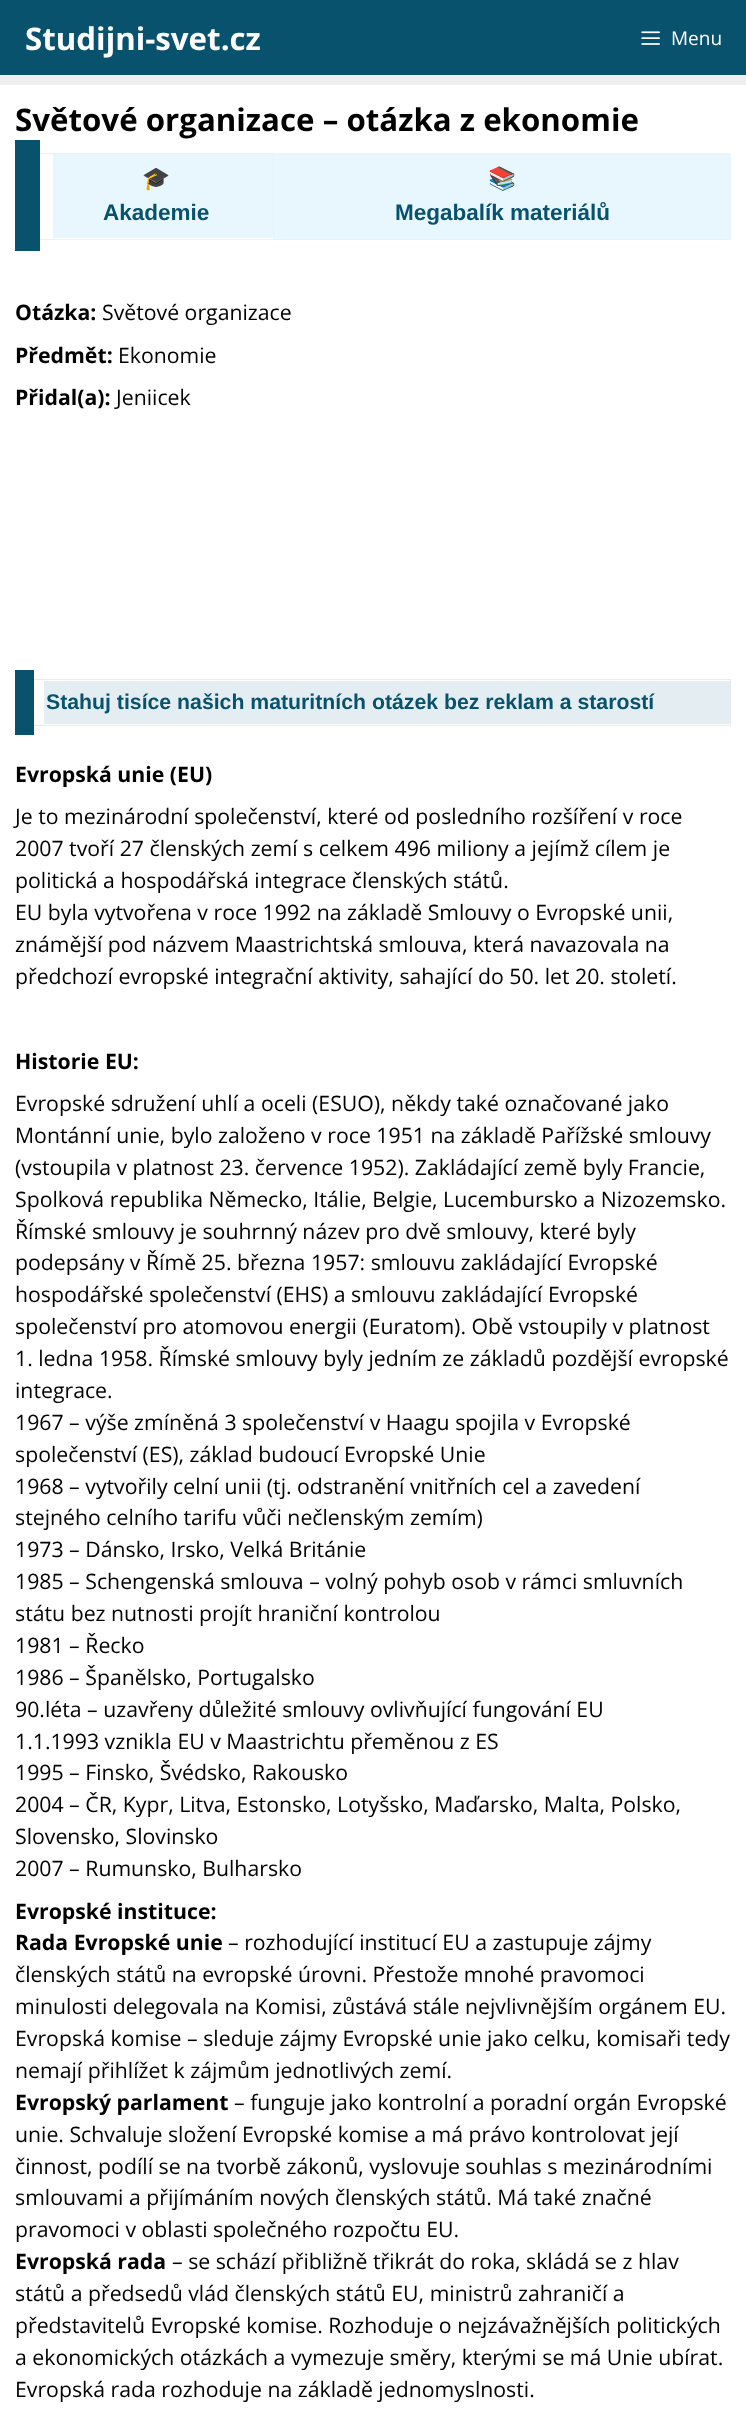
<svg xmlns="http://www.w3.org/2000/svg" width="746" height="2431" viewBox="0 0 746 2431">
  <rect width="100%" height="100%" fill="#efefef"/>
  <rect x="0" y="0" width="746" height="75" fill="#08526d"/>
  <text x="25" y="50" font-family="Open Sans" font-size="31.25" font-weight="bold" fill="#ffffff">Studijni-svet.cz</text>
  <image x="641" y="31" width="19" height="14" href="img1.png"/>
  <text x="671" y="45" font-family="Open Sans" font-size="19" fill="#ffffff">Menu</text>
  <rect x="0" y="85" width="746" height="2346" fill="#ffffff"/>
  <text x="15" y="131" font-family="Open Sans" font-size="31.25" font-weight="bold" fill="#000000">Světové organizace – otázka z ekonomie</text>
  <rect x="40" y="153" width="234" height="1" fill="#f9ecec"/>
  <rect x="273" y="239" width="458" height="1" fill="#f9ecec"/>
  <rect x="273" y="153" width="1" height="87" fill="#f9ecec"/>
  <rect x="40" y="239" width="234" height="1" fill="#f9ecec"/>
  <rect x="15" y="140" width="25" height="111" fill="#08526d"/>
  <rect x="53" y="154" width="220" height="84" fill="#e7f7fd"/>
  <text x="142" y="186" font-family="Noto Color Emoji" font-size="22.5" font-weight="bold" fill="#08526d">🎓</text>
  <text x="103" y="220" font-family="Liberation Sans" font-size="22.5" font-weight="bold" fill="#08526d">Akademie</text>
  <rect x="274" y="153" width="457" height="86" fill="#e7f7fd"/>
  <text x="488" y="186" font-family="Noto Color Emoji" font-size="22.5" font-weight="bold" fill="#08526d">📚</text>
  <text x="395" y="220" font-family="Liberation Sans" font-size="22.5" font-weight="bold" fill="#08526d">Megabalík materiálů</text>
  <text x="15" y="320" font-family="Open Sans" font-size="21.25" font-weight="bold" fill="#000000">Otázka:</text>
  <text x="102" y="320" font-family="Open Sans" font-size="21.25" fill="#000000">Světové organizace</text>
  <text x="15" y="363" font-family="Open Sans" font-size="21.25" font-weight="bold" fill="#000000">Předmět:</text>
  <text x="118" y="363" font-family="Open Sans" font-size="21.25" fill="#000000">Ekonomie</text>
  <text x="15" y="405" font-family="Open Sans" font-size="21.25" font-weight="bold" fill="#000000">Přidal(a):</text>
  <text x="116" y="405" font-family="Open Sans" font-size="21.25" fill="#000000">Jeniicek</text>
  <rect x="34" y="679" width="697" height="1" fill="#e3edf2"/>
  <rect x="730" y="679" width="1" height="47" fill="#e3edf2"/>
  <rect x="34" y="725" width="697" height="1" fill="#e3edf2"/>
  <rect x="15" y="670" width="19" height="65" fill="#08526d"/>
  <rect x="44" y="681" width="686" height="43" fill="#e3edf2"/>
  <text x="46" y="709" font-family="Liberation Sans" font-size="21.25" font-weight="bold" fill="#08526d">Stahuj tisíce našich maturitních otázek bez reklam a starostí</text>
  <text x="15" y="782" font-family="Open Sans" font-size="21.25" font-weight="bold" fill="#000000">Evropská unie (EU)</text>
  <text x="15" y="824" font-family="Open Sans" font-size="21.25" fill="#000000">Je to mezinárodní společenství, které od posledního rozšíření v roce</text>
  <text x="15" y="856" font-family="Open Sans" font-size="21.25" fill="#000000">2007 tvoří 27 členských zemí s celkem 496 miliony a jejímž cílem je</text>
  <text x="15" y="888" font-family="Open Sans" font-size="21.25" fill="#000000">politická a hospodářská integrace členských států.</text>
  <text x="15" y="920" font-family="Open Sans" font-size="21.25" fill="#000000">EU byla vytvořena v roce 1992 na základě Smlouvy o Evropské unii,</text>
  <text x="15" y="952" font-family="Open Sans" font-size="21.25" fill="#000000">známější pod názvem Maastrichtská smlouva, která navazovala na</text>
  <text x="15" y="984" font-family="Open Sans" font-size="21.25" fill="#000000">předchozí evropské integrační aktivity, sahající do 50. let 20. století.</text>
  <text x="15" y="1069" font-family="Open Sans" font-size="21.25" font-weight="bold" fill="#000000">Historie EU:</text>
  <text x="15" y="1111" font-family="Open Sans" font-size="21.25" fill="#000000">Evropské sdružení uhlí a oceli (ESUO), někdy také označované jako</text>
  <text x="15" y="1143" font-family="Open Sans" font-size="21.25" fill="#000000">Montánní unie, bylo založeno v roce 1951 na základě Pařížské smlouvy</text>
  <text x="15" y="1175" font-family="Open Sans" font-size="21.25" fill="#000000">(vstoupila v platnost 23. července 1952). Zakládající země byly Francie,</text>
  <text x="15" y="1207" font-family="Open Sans" font-size="21.25" fill="#000000">Spolková republika Německo, Itálie, Belgie, Lucembursko a Nizozemsko.</text>
  <text x="15" y="1239" font-family="Open Sans" font-size="21.25" fill="#000000">Římské smlouvy je souhrnný název pro dvě smlouvy, které byly</text>
  <text x="15" y="1270" font-family="Open Sans" font-size="21.25" fill="#000000">podepsány v Římě 25. března 1957: smlouvu zakládající Evropské</text>
  <text x="15" y="1302" font-family="Open Sans" font-size="21.25" fill="#000000">hospodářské společenství (EHS) a smlouvu zakládající Evropské</text>
  <text x="15" y="1334" font-family="Open Sans" font-size="21.25" fill="#000000">společenství pro atomovou energii (Euratom). Obě vstoupily v platnost</text>
  <text x="15" y="1366" font-family="Open Sans" font-size="21.25" fill="#000000">1. ledna 1958. Římské smlouvy byly jedním ze základů pozdější evropské</text>
  <text x="15" y="1398" font-family="Open Sans" font-size="21.25" fill="#000000">integrace.</text>
  <text x="15" y="1430" font-family="Open Sans" font-size="21.25" fill="#000000">1967 – výše zmíněná 3 společenství v Haagu spojila v Evropské</text>
  <text x="15" y="1462" font-family="Open Sans" font-size="21.25" fill="#000000">společenství (ES), základ budoucí Evropské Unie</text>
  <text x="15" y="1494" font-family="Open Sans" font-size="21.25" fill="#000000">1968 – vytvořily celní unii (tj. odstranění vnitřních cel a zavedení</text>
  <text x="15" y="1525" font-family="Open Sans" font-size="21.25" fill="#000000">stejného celního tarifu vůči nečlenským zemím)</text>
  <text x="15" y="1557" font-family="Open Sans" font-size="21.25" fill="#000000">1973 – Dánsko, Irsko, Velká Británie</text>
  <text x="15" y="1589" font-family="Open Sans" font-size="21.25" fill="#000000">1985 – Schengenská smlouva – volný pohyb osob v rámci smluvních</text>
  <text x="15" y="1621" font-family="Open Sans" font-size="21.25" fill="#000000">státu bez nutnosti projít hraniční kontrolou</text>
  <text x="15" y="1653" font-family="Open Sans" font-size="21.25" fill="#000000">1981 – Řecko</text>
  <text x="15" y="1685" font-family="Open Sans" font-size="21.25" fill="#000000">1986 – Španělsko, Portugalsko</text>
  <text x="15" y="1717" font-family="Open Sans" font-size="21.25" fill="#000000">90.léta – uzavřeny důležité smlouvy ovlivňující fungování EU</text>
  <text x="15" y="1749" font-family="Open Sans" font-size="21.25" fill="#000000">1.1.1993 vznikla EU v Maastrichtu přeměnou z ES</text>
  <text x="15" y="1780" font-family="Open Sans" font-size="21.25" fill="#000000">1995 – Finsko, Švédsko, Rakousko</text>
  <text x="15" y="1812" font-family="Open Sans" font-size="21.25" fill="#000000">2004 – ČR, Kypr, Litva, Estonsko, Lotyšsko, Maďarsko, Malta, Polsko,</text>
  <text x="15" y="1844" font-family="Open Sans" font-size="21.25" fill="#000000">Slovensko, Slovinsko</text>
  <text x="15" y="1876" font-family="Open Sans" font-size="21.25" fill="#000000">2007 – Rumunsko, Bulharsko</text>
  <text x="15" y="1919" font-family="Open Sans" font-size="21.25" font-weight="bold" fill="#000000">Evropské instituce:</text>
  <text x="15" y="1950" font-family="Open Sans" font-size="21.25" font-weight="bold" fill="#000000">Rada Evropské unie</text>
  <text x="228" y="1950" font-family="Open Sans" font-size="21.25" fill="#000000">– rozhodující institucí EU a zastupuje zájmy</text>
  <text x="15" y="1982" font-family="Open Sans" font-size="21.25" fill="#000000">členských států na evropské úrovni. Přestože mnohé pravomoci</text>
  <text x="15" y="2014" font-family="Open Sans" font-size="21.25" fill="#000000">minulosti delegovala na Komisi, zůstává stále nejvlivnějším orgánem EU.</text>
  <text x="15" y="2046" font-family="Open Sans" font-size="21.25" fill="#000000">Evropská komise – sleduje zájmy Evropské unie jako celku, komisaři tedy</text>
  <text x="15" y="2078" font-family="Open Sans" font-size="21.25" fill="#000000">nemají přihlížet k zájmům jednotlivých zemí.</text>
  <text x="15" y="2110" font-family="Open Sans" font-size="21.25" font-weight="bold" fill="#000000">Evropský parlament</text>
  <text x="234" y="2110" font-family="Open Sans" font-size="21.25" fill="#000000">– funguje jako kontrolní a poradní orgán Evropské</text>
  <text x="15" y="2142" font-family="Open Sans" font-size="21.25" fill="#000000">unie. Schvaluje složení Evropské komise a má právo kontrolovat její</text>
  <text x="15" y="2174" font-family="Open Sans" font-size="21.25" fill="#000000">činnost, podílí se na tvorbě zákonů, vyslovuje souhlas s mezinárodními</text>
  <text x="15" y="2205" font-family="Open Sans" font-size="21.25" fill="#000000">smlouvami a přijímáním nových členských států. Má také značné</text>
  <text x="15" y="2237" font-family="Open Sans" font-size="21.25" fill="#000000">pravomoci v oblasti společného rozpočtu EU.</text>
  <text x="15" y="2269" font-family="Open Sans" font-size="21.25" font-weight="bold" fill="#000000">Evropská rada</text>
  <text x="172" y="2269" font-family="Open Sans" font-size="21.25" fill="#000000">– se schází přibližně třikrát do roka, skládá se z hlav</text>
  <text x="15" y="2301" font-family="Open Sans" font-size="21.25" fill="#000000">států a předsedů vlád členských států EU, ministrů zahraničí a</text>
  <text x="15" y="2333" font-family="Open Sans" font-size="21.25" fill="#000000">představitelů Evropské komise. Rozhoduje o nejzávažnějších politických</text>
  <text x="15" y="2365" font-family="Open Sans" font-size="21.25" fill="#000000">a ekonomických otázkách a vymezuje směry, kterými se má Unie ubírat.</text>
  <text x="15" y="2397" font-family="Open Sans" font-size="21.25" fill="#000000">Evropská rada rozhoduje na základě jednomyslnosti.</text>
</svg>
